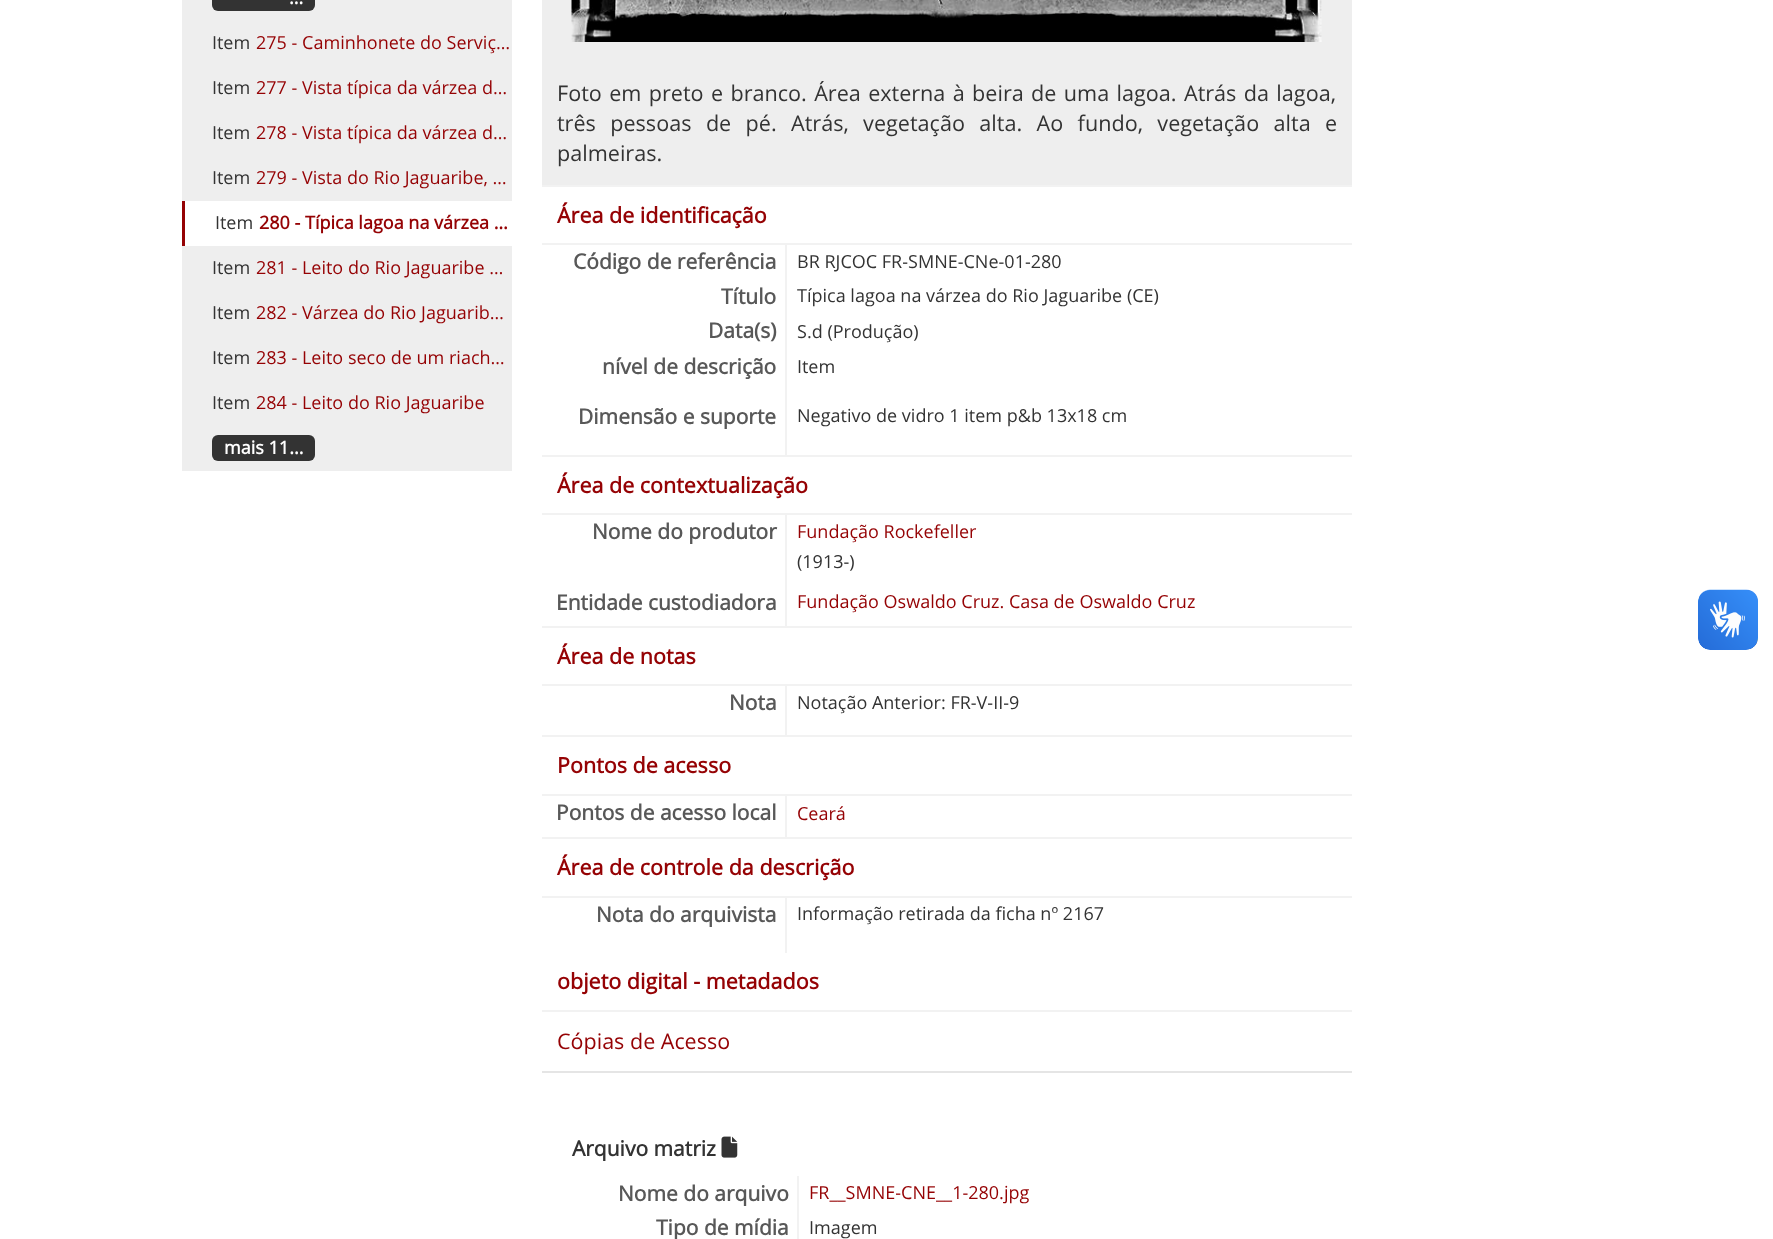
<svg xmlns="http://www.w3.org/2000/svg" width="1773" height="1239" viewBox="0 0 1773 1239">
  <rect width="100%" height="100%" fill="#ffffff"/>
  <rect x="182" y="0" width="330" height="471" fill="#eeeeee"/>
  <rect x="212" y="-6" width="103" height="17" rx="6" fill="#333333"/>
  <text x="289" y="4" font-family="Open Sans" font-size="18" font-weight="bold" fill="#ffffff">...</text>
  <text x="212" y="49" font-family="Open Sans" font-size="18" fill="#333333">Item</text>
  <text x="256" y="49" font-family="Open Sans" font-size="18" fill="#950204">275 - Caminhonete do Serviç…</text>
  <text x="212" y="94" font-family="Open Sans" font-size="18" fill="#333333">Item</text>
  <text x="256" y="94" font-family="Open Sans" font-size="18" fill="#950204">277 - Vista típica da várzea d…</text>
  <text x="212" y="139" font-family="Open Sans" font-size="18" fill="#333333">Item</text>
  <text x="256" y="139" font-family="Open Sans" font-size="18" fill="#950204">278 - Vista típica da várzea d…</text>
  <text x="212" y="184" font-family="Open Sans" font-size="18" fill="#333333">Item</text>
  <text x="256" y="184" font-family="Open Sans" font-size="18" fill="#950204">279 - Vista do Rio Jaguaribe, …</text>
  <rect x="185" y="201" width="327" height="45" fill="#ffffff"/>
  <rect x="182" y="201" width="3" height="45" fill="#950204"/>
  <text x="215" y="229" font-family="Open Sans" font-size="18" fill="#333333">Item</text>
  <text x="259" y="229" font-family="Open Sans" font-size="18" font-weight="bold" fill="#950204">280 - Típica lagoa na várzea …</text>
  <text x="212" y="274" font-family="Open Sans" font-size="18" fill="#333333">Item</text>
  <text x="256" y="274" font-family="Open Sans" font-size="18" fill="#950204">281 - Leito do Rio Jaguaribe …</text>
  <text x="212" y="319" font-family="Open Sans" font-size="18" fill="#333333">Item</text>
  <text x="256" y="319" font-family="Open Sans" font-size="18" fill="#950204">282 - Várzea do Rio Jaguarib…</text>
  <text x="212" y="364" font-family="Open Sans" font-size="18" fill="#333333">Item</text>
  <text x="256" y="364" font-family="Open Sans" font-size="18" fill="#950204">283 - Leito seco de um riach…</text>
  <text x="212" y="409" font-family="Open Sans" font-size="18" fill="#333333">Item</text>
  <text x="256" y="409" font-family="Open Sans" font-size="18" fill="#950204">284 - Leito do Rio Jaguaribe</text>
  <rect x="212" y="435" width="103" height="26" rx="6" fill="#333333"/>
  <text x="224" y="454" font-family="Open Sans" font-size="18" font-weight="bold" fill="#ffffff">mais 11...</text>
  <rect x="542" y="0" width="810" height="185" fill="#eeeeee"/>
  <image x="571" y="0" width="751" height="42" href="img1.png"/>
  <text x="557" y="101" word-spacing="1.75" font-family="Open Sans" font-size="21.6" fill="#333333">Foto em preto e branco. Área externa à beira de uma lagoa. Atrás da lagoa,</text>
  <text x="557" y="131" word-spacing="8.75" font-family="Open Sans" font-size="21.6" fill="#333333">três pessoas de pé. Atrás, vegetação alta. Ao fundo, vegetação alta e</text>
  <text x="557" y="161" font-family="Open Sans" font-size="21.6" fill="#333333">palmeiras.</text>
  <rect x="542" y="185" width="810" height="2" fill="#f2f2f2"/>
  <rect x="542" y="243" width="810" height="2" fill="#f2f2f2"/>
  <text x="557" y="223" font-family="Open Sans" font-size="21.5" font-weight="bold" fill="#950204">Área de identificação</text>
  <rect x="785" y="245" width="2" height="210" fill="#f2f2f2"/>
  <text x="573" y="269" font-family="Open Sans" font-size="21" font-weight="bold" fill="#585858">Código de referência</text>
  <text x="797" y="268" font-family="Open Sans" font-size="18" fill="#333333">BR RJCOC FR-SMNE-CNe-01-280</text>
  <text x="721" y="304" font-family="Open Sans" font-size="21" font-weight="bold" fill="#585858">Título</text>
  <text x="797" y="302" font-family="Open Sans" font-size="18" fill="#333333">Típica lagoa na várzea do Rio Jaguaribe (CE)</text>
  <text x="708" y="338" font-family="Open Sans" font-size="21" font-weight="bold" fill="#585858">Data(s)</text>
  <text x="797" y="338" font-family="Open Sans" font-size="18" fill="#333333">S.d (Produção)</text>
  <text x="602" y="374" font-family="Open Sans" font-size="21" font-weight="bold" fill="#585858">nível de descrição</text>
  <text x="797" y="373" font-family="Open Sans" font-size="18" fill="#333333">Item</text>
  <text x="578" y="424" font-family="Open Sans" font-size="21" font-weight="bold" fill="#585858">Dimensão e suporte</text>
  <text x="797" y="422" font-family="Open Sans" font-size="18" fill="#333333">Negativo de vidro 1 item p&amp;b 13x18 cm</text>
  <rect x="542" y="455" width="810" height="2" fill="#f2f2f2"/>
  <rect x="542" y="513" width="810" height="2" fill="#f2f2f2"/>
  <text x="557" y="493" font-family="Open Sans" font-size="21.5" font-weight="bold" fill="#950204">Área de contextualização</text>
  <rect x="785" y="515" width="2" height="111" fill="#f2f2f2"/>
  <text x="592" y="539" font-family="Open Sans" font-size="21" font-weight="bold" fill="#585858">Nome do produtor</text>
  <text x="797" y="538" font-family="Open Sans" font-size="18" fill="#950204">Fundação Rockefeller</text>
  <text x="797" y="568" font-family="Open Sans" font-size="18" fill="#333333">(1913-)</text>
  <text x="556" y="610" font-family="Open Sans" font-size="21" font-weight="bold" fill="#585858">Entidade custodiadora</text>
  <text x="797" y="608" font-family="Open Sans" font-size="18" fill="#950204">Fundação Oswaldo Cruz. Casa de Oswaldo Cruz</text>
  <rect x="542" y="626" width="810" height="2" fill="#f2f2f2"/>
  <rect x="542" y="684" width="810" height="2" fill="#f2f2f2"/>
  <text x="557" y="664" font-family="Open Sans" font-size="21.5" font-weight="bold" fill="#950204">Área de notas</text>
  <rect x="785" y="686" width="2" height="49" fill="#f2f2f2"/>
  <text x="729" y="710" font-family="Open Sans" font-size="21" font-weight="bold" fill="#585858">Nota</text>
  <text x="797" y="709" font-family="Open Sans" font-size="18" fill="#333333">Notação Anterior: FR-V-II-9</text>
  <rect x="542" y="735" width="810" height="2" fill="#f2f2f2"/>
  <rect x="542" y="794" width="810" height="2" fill="#f2f2f2"/>
  <text x="557" y="773" font-family="Open Sans" font-size="21.5" font-weight="bold" fill="#950204">Pontos de acesso</text>
  <rect x="785" y="795" width="2" height="42" fill="#f2f2f2"/>
  <text x="556" y="820" font-family="Open Sans" font-size="21" font-weight="bold" fill="#585858">Pontos de acesso local</text>
  <text x="797" y="820" font-family="Open Sans" font-size="18" fill="#950204">Ceará</text>
  <rect x="542" y="837" width="810" height="2" fill="#f2f2f2"/>
  <rect x="542" y="896" width="810" height="2" fill="#f2f2f2"/>
  <text x="557" y="875" font-family="Open Sans" font-size="21.5" font-weight="bold" fill="#950204">Área de controle da descrição</text>
  <rect x="785" y="897" width="2" height="56" fill="#f2f2f2"/>
  <text x="596" y="922" font-family="Open Sans" font-size="21" font-weight="bold" fill="#585858">Nota do arquivista</text>
  <text x="797" y="920" font-family="Open Sans" font-size="18" fill="#333333">Informação retirada da ficha nº 2167</text>
  <rect x="542" y="1010" width="810" height="2" fill="#f2f2f2"/>
  <text x="557" y="989" font-family="Open Sans" font-size="21.5" font-weight="bold" fill="#950204">objeto digital - metadados</text>
  <rect x="542" y="1071" width="810" height="2" fill="#e5e5e5"/>
  <text x="557" y="1049" font-family="Open Sans" font-size="21.5" fill="#950204">Cópias de Acesso</text>
  <text x="572" y="1156" font-family="Open Sans" font-size="21" font-weight="bold" fill="#333333">Arquivo matriz</text>
  <image x="721" y="1136" width="17" height="22" href="img2.png"/>
  <rect x="797" y="1176" width="2" height="63" fill="#f2f2f2"/>
  <text x="618" y="1201" font-family="Open Sans" font-size="21" font-weight="bold" fill="#585858">Nome do arquivo</text>
  <text x="809" y="1199" font-family="Open Sans" font-size="18" fill="#950204">FR__SMNE-CNE__1-280.jpg</text>
  <text x="656" y="1235" font-family="Open Sans" font-size="21" font-weight="bold" fill="#585858">Tipo de mídia</text>
  <text x="809" y="1234" font-family="Open Sans" font-size="18" fill="#333333">Imagem</text>
  <image x="1698" y="589" width="60" height="61" href="img3.png"/>
  <image x="1698" y="590" width="60" height="60" href="img4.png"/>
</svg>
